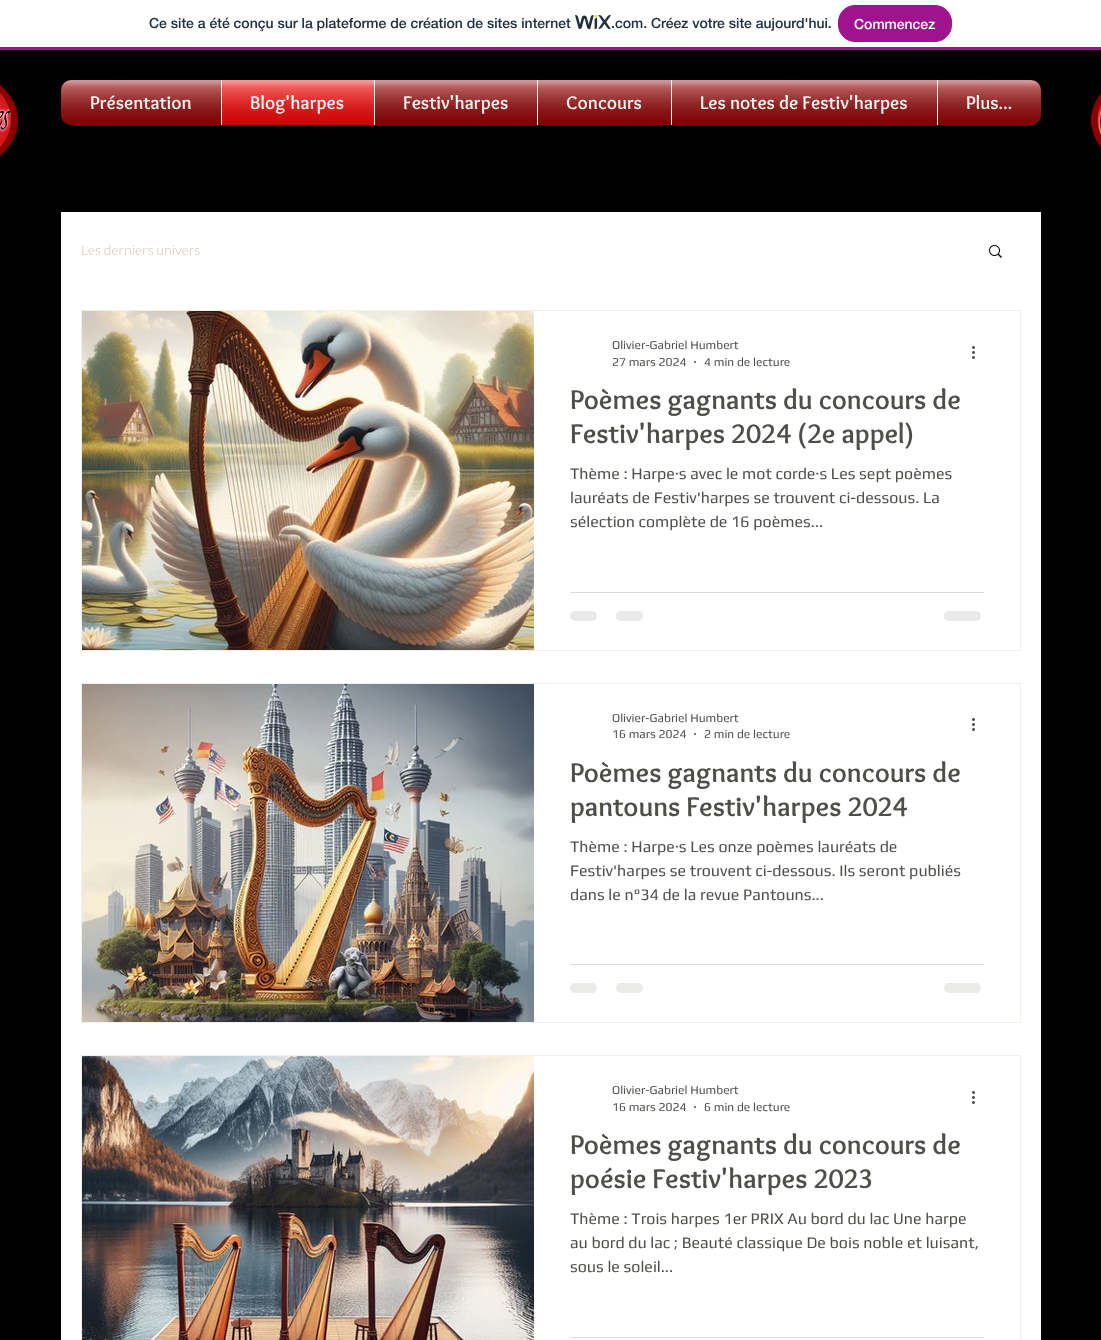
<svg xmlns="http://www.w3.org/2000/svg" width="1101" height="1340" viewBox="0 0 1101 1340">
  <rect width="100%" height="100%" fill="#000000"/>
  <rect x="0" y="0" width="1101" height="47" fill="#ffffff"/>
  <rect x="0" y="47" width="1101" height="3" fill="#a0138e"/>
  <text x="149" y="28" font-family="'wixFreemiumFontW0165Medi'" font-size="14" font-weight="500" fill="#20303c">Ce site a été conçu sur la plateforme de création de sites internet</text>
  <image x="575" y="15" width="36" height="15" href="img1.png"/>
  <text x="611" y="28" font-family="'wixFreemiumFontW0165Medi'" font-size="14" font-weight="500" fill="#20303c">.com. Créez votre site aujourd'hui.</text>
  <rect x="838.5" y="5.5" width="113" height="36" rx="16.5" fill="#a0138e" stroke="#a0138e"/>
  <text x="854" y="29" font-family="'wixFreemiumFontW0165Medi'" font-size="14" font-weight="500" fill="#ffffff">Commencez</text>
  <image x="0" y="84" width="18" height="72" href="img2.png"/>
  <image x="61" y="80" width="980" height="45" href="img3.png"/>
  <image x="61" y="115" width="980" height="10" href="img4.png"/>
  <path d="M71 80H221V125H71C65.5 125 61 120.5 61 115V90C61 84.5 65.5 80 71 80Z" fill="#8b0000"/>
  <text x="90" y="109" font-family="Overlock" font-size="19" font-weight="bold" fill="#ffffff">Présentation</text>
  <image x="61" y="80" width="160" height="45" href="img5.png"/>
  <image x="61" y="91" width="160" height="34" href="img6.png"/>
  <rect x="222" y="80" width="152" height="45" fill="#e80000"/>
  <rect x="221" y="80" width="1" height="45" fill="#ffffff"/>
  <text x="250" y="109" font-family="Overlock" font-size="19" font-weight="bold" fill="#ffffff">Blog'harpes</text>
  <image x="222" y="80" width="152" height="45" href="img7.png"/>
  <image x="222" y="91" width="152" height="34" href="img8.png"/>
  <rect x="375" y="80" width="162" height="45" fill="#8b0000"/>
  <rect x="374" y="80" width="1" height="45" fill="#ffffff"/>
  <text x="403" y="109" font-family="Overlock" font-size="19" font-weight="bold" fill="#ffffff">Festiv'harpes</text>
  <image x="375" y="80" width="162" height="45" href="img9.png"/>
  <image x="375" y="91" width="162" height="34" href="img10.png"/>
  <rect x="538" y="80" width="133" height="45" fill="#8b0000"/>
  <rect x="537" y="80" width="1" height="45" fill="#ffffff"/>
  <text x="566" y="109" font-family="Overlock" font-size="19" font-weight="bold" fill="#ffffff">Concours</text>
  <image x="538" y="80" width="133" height="45" href="img11.png"/>
  <image x="538" y="91" width="133" height="34" href="img12.png"/>
  <rect x="672" y="80" width="265" height="45" fill="#8b0000"/>
  <rect x="671" y="80" width="1" height="45" fill="#ffffff"/>
  <text x="700" y="109" font-family="Overlock" font-size="19" font-weight="bold" fill="#ffffff">Les notes de Festiv'harpes</text>
  <image x="672" y="80" width="265" height="45" href="img13.png"/>
  <image x="672" y="91" width="265" height="34" href="img14.png"/>
  <path d="M937 80H1031C1036.5 80 1041 84.5 1041 90V115C1041 120.5 1036.5 125 1031 125H937Z" fill="#8b0000"/>
  <rect x="937" y="80" width="1" height="45" fill="#ffffff"/>
  <text x="966" y="109" font-family="Overlock" font-size="19" font-weight="bold" fill="#ffffff">Plus...</text>
  <image x="938" y="80" width="103" height="45" href="img15.png"/>
  <image x="938" y="91" width="103" height="34" href="img16.png"/>
  <image x="1091" y="93" width="10" height="55" href="img17.png"/>
  <rect x="61" y="212" width="980" height="1128" fill="#ffffff"/>
  <text x="81" y="255" font-family="Lato" font-size="14" font-weight="300" fill="#d6bfaf">Les derniers univers</text>
  <image x="989" y="245" width="13" height="13" href="img18.png"/>
  <rect x="81.5" y="310.5" width="939" height="340" fill="none" stroke="#f2f1e7"/>
  <image x="82" y="311" width="452" height="339" href="img19.png"/>
  <text x="612" y="349" font-family="Play" font-size="12" fill="#4f4e4a">Olivier-Gabriel Humbert</text>
  <text x="612" y="366" font-family="Play" font-size="12" fill="#4f4e4a">27 mars 2024</text>
  <circle cx="695" cy="362" r="1" fill="#4f4e4a"/>
  <text x="704" y="366" font-family="Play" font-size="12" fill="#4f4e4a">4 min de lecture</text>
  <image x="972" y="346" width="3" height="13" href="img20.png"/>
  <text x="570" y="409" font-family="Overlock" font-size="28" font-weight="bold" fill="#4f4e4a">Poèmes gagnants du concours de</text>
  <text x="570" y="443" font-family="Overlock" font-size="28" font-weight="bold" fill="#4f4e4a">Festiv'harpes 2024 (2e appel)</text>
  <text x="570" y="479" font-family="Play" font-size="16" fill="#4f4e4a">Thème : Harpe·s avec le mot corde·s Les sept poèmes</text>
  <text x="570" y="503" font-family="Play" font-size="16" fill="#4f4e4a">lauréats de Festiv'harpes se trouvent ci-dessous. La</text>
  <text x="570" y="527" font-family="Play" font-size="16" fill="#4f4e4a">sélection complète de 16 poèmes...</text>
  <rect x="570" y="592" width="414" height="1" fill="#dcdcdb"/>
  <rect x="570" y="611" width="27" height="10" rx="5" fill="#eaeae9"/>
  <rect x="616" y="611" width="27" height="10" rx="5" fill="#eaeae9"/>
  <rect x="944" y="611" width="37" height="10" rx="5" fill="#eaeae9"/>
  <rect x="81.5" y="683.5" width="939" height="339" fill="none" stroke="#f2f1e7"/>
  <image x="82" y="684" width="452" height="338" href="img21.png"/>
  <text x="612" y="722" font-family="Play" font-size="12" fill="#4f4e4a">Olivier-Gabriel Humbert</text>
  <text x="612" y="738" font-family="Play" font-size="12" fill="#4f4e4a">16 mars 2024</text>
  <circle cx="695" cy="734" r="1" fill="#4f4e4a"/>
  <text x="704" y="738" font-family="Play" font-size="12" fill="#4f4e4a">2 min de lecture</text>
  <image x="972" y="718" width="3" height="13" href="img20.png"/>
  <text x="570" y="782" font-family="Overlock" font-size="28" font-weight="bold" fill="#4f4e4a">Poèmes gagnants du concours de</text>
  <text x="570" y="816" font-family="Overlock" font-size="28" font-weight="bold" fill="#4f4e4a">pantouns Festiv'harpes 2024</text>
  <text x="570" y="852" font-family="Play" font-size="16" fill="#4f4e4a">Thème : Harpe·s Les onze poèmes lauréats de</text>
  <text x="570" y="876" font-family="Play" font-size="16" fill="#4f4e4a">Festiv'harpes se trouvent ci-dessous. Ils seront publiés</text>
  <text x="570" y="900" font-family="Play" font-size="16" fill="#4f4e4a">dans le n°34 de la revue Pantouns...</text>
  <rect x="570" y="964" width="414" height="1" fill="#dcdcdb"/>
  <rect x="570" y="983" width="27" height="10" rx="5" fill="#eaeae9"/>
  <rect x="616" y="983" width="27" height="10" rx="5" fill="#eaeae9"/>
  <rect x="944" y="983" width="37" height="10" rx="5" fill="#eaeae9"/>
  <rect x="81.5" y="1055.5" width="939" height="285" fill="none" stroke="#f2f1e7"/>
  <image x="82" y="1056" width="452" height="284" href="img22.png"/>
  <text x="612" y="1094" font-family="Play" font-size="12" fill="#4f4e4a">Olivier-Gabriel Humbert</text>
  <text x="612" y="1111" font-family="Play" font-size="12" fill="#4f4e4a">16 mars 2024</text>
  <circle cx="695" cy="1107" r="1" fill="#4f4e4a"/>
  <text x="704" y="1111" font-family="Play" font-size="12" fill="#4f4e4a">6 min de lecture</text>
  <image x="972" y="1091" width="3" height="13" href="img20.png"/>
  <text x="570" y="1154" font-family="Overlock" font-size="28" font-weight="bold" fill="#4f4e4a">Poèmes gagnants du concours de</text>
  <text x="570" y="1188" font-family="Overlock" font-size="28" font-weight="bold" fill="#4f4e4a">poésie Festiv'harpes 2023</text>
  <text x="570" y="1224" font-family="Play" font-size="16" fill="#4f4e4a">Thème : Trois harpes 1er PRIX Au bord du lac Une harpe</text>
  <text x="570" y="1248" font-family="Play" font-size="16" fill="#4f4e4a">au bord du lac ; Beauté classique De bois noble et luisant,</text>
  <text x="570" y="1272" font-family="Play" font-size="16" fill="#4f4e4a">sous le soleil...</text>
  <rect x="570" y="1337" width="414" height="1" fill="#dcdcdb"/>
</svg>
